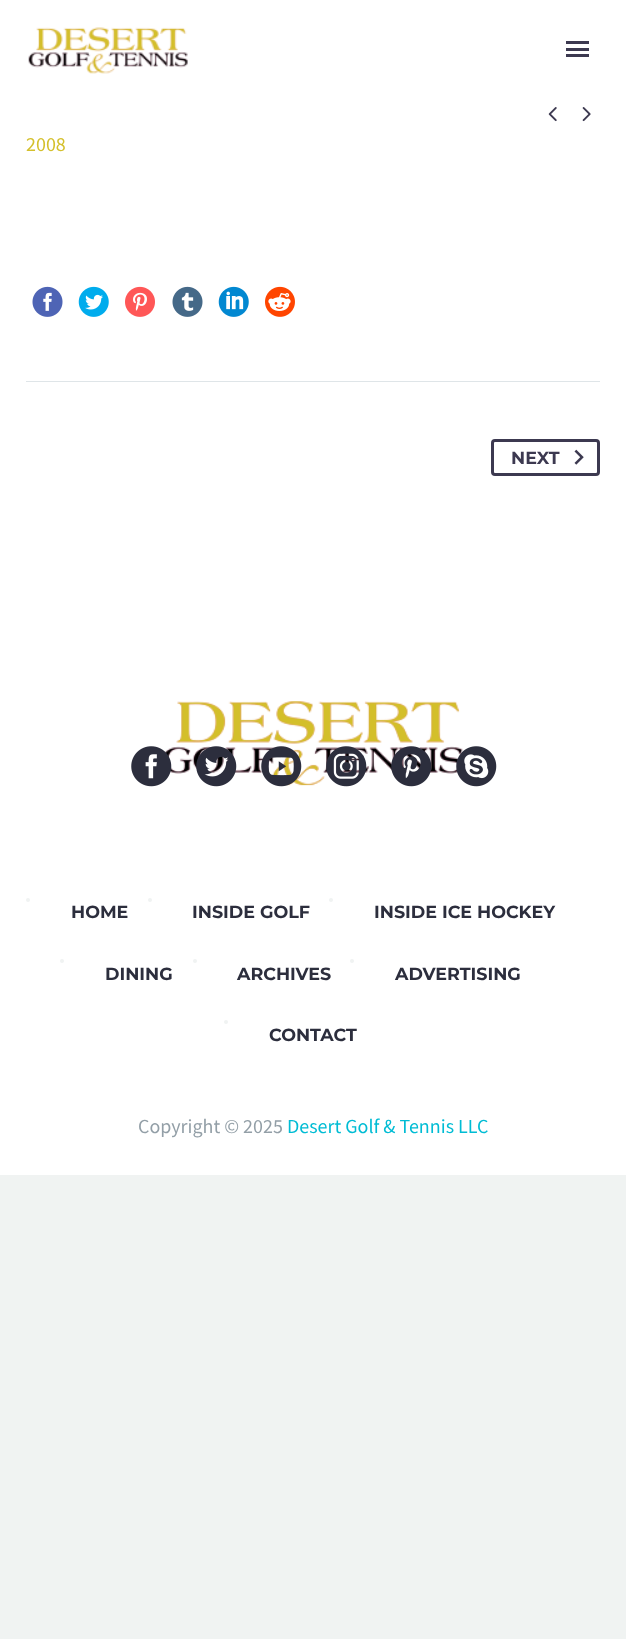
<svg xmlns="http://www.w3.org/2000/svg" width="626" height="1639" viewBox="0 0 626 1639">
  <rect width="100%" height="100%" fill="#f0f3f2"/>
  <rect x="0" y="0" width="626" height="510" fill="#ffffff"/>
  <image x="28" y="27" width="160" height="47" href="img1.png"/>
  <rect x="566" y="41" width="23" height="3" fill="#3c3950"/>
  <rect x="566" y="48" width="23" height="3" fill="#3c3950"/>
  <rect x="566" y="54" width="23" height="3" fill="#3c3950"/>
  <image x="548" y="107" width="9" height="15" href="img2.png"/>
  <image x="582" y="107" width="9" height="15" href="img3.png"/>
  <text x="26" y="151" font-family="Source Sans Pro" font-size="20" fill="#d4c02d">2008</text>
  <image x="32" y="286" width="31" height="31" href="img4.png"/>
  <image x="78" y="286" width="31" height="31" href="img5.png"/>
  <image x="125" y="286" width="30" height="31" href="img6.png"/>
  <image x="172" y="286" width="31" height="31" href="img7.png"/>
  <image x="218" y="286" width="31" height="31" href="img8.png"/>
  <image x="265" y="286" width="30" height="31" href="img9.png"/>
  <rect x="26" y="381" width="574" height="1" fill="#dfe5e8"/>
  <rect x="492.5" y="440.5" width="106" height="34" rx="2.5" fill="none" stroke="#3c3950" stroke-width="3"/>
  <text x="511" y="464" font-family="Montserrat" font-size="17.5" font-weight="bold" fill="#3c3950">NEXT</text>
  <image x="574" y="449" width="10" height="16" href="img10.png"/>
  <rect x="0" y="510" width="626" height="665" fill="#ffffff"/>
  <image x="165" y="701" width="298" height="85" href="img11.png"/>
  <image x="131" y="746" width="41" height="41" href="img12.png"/>
  <image x="196" y="746" width="41" height="41" href="img13.png"/>
  <image x="261" y="746" width="41" height="41" href="img14.png"/>
  <image x="326" y="746" width="41" height="41" href="img15.png"/>
  <image x="391" y="746" width="40" height="41" href="img16.png"/>
  <image x="456" y="746" width="41" height="41" href="img17.png"/>
  <circle cx="28" cy="900" r="2" fill="#f0f3f2"/>
  <text x="71" y="918" font-family="Montserrat" font-size="17.5" font-weight="bold" fill="#2c2e3d">HOME</text>
  <circle cx="150" cy="900" r="2" fill="#f0f3f2"/>
  <text x="192" y="918" font-family="Montserrat" font-size="17.5" font-weight="bold" fill="#2c2e3d">INSIDE GOLF</text>
  <circle cx="331" cy="900" r="2" fill="#f0f3f2"/>
  <text x="374" y="918" font-family="Montserrat" font-size="17.5" font-weight="bold" fill="#2c2e3d">INSIDE ICE HOCKEY</text>
  <circle cx="62" cy="961" r="2" fill="#f0f3f2"/>
  <text x="105" y="980" font-family="Montserrat" font-size="17.5" font-weight="bold" fill="#2c2e3d">DINING</text>
  <circle cx="195" cy="961" r="2" fill="#f0f3f2"/>
  <text x="237" y="980" font-family="Montserrat" font-size="17.5" font-weight="bold" fill="#2c2e3d">ARCHIVES</text>
  <circle cx="352" cy="961" r="2" fill="#f0f3f2"/>
  <text x="395" y="980" font-family="Montserrat" font-size="17.5" font-weight="bold" fill="#2c2e3d">ADVERTISING</text>
  <circle cx="226" cy="1022" r="2" fill="#f0f3f2"/>
  <text x="269" y="1041" font-family="Montserrat" font-size="17.5" font-weight="bold" fill="#2c2e3d">CONTACT</text>
  <text x="138" y="1133" font-family="Source Sans Pro" font-size="20" fill="#939fa7">Copyright © 2025</text>
  <text x="287" y="1133" font-family="Source Sans Pro" font-size="20" fill="#00bcd4">Desert Golf &amp; Tennis LLC</text>
</svg>
